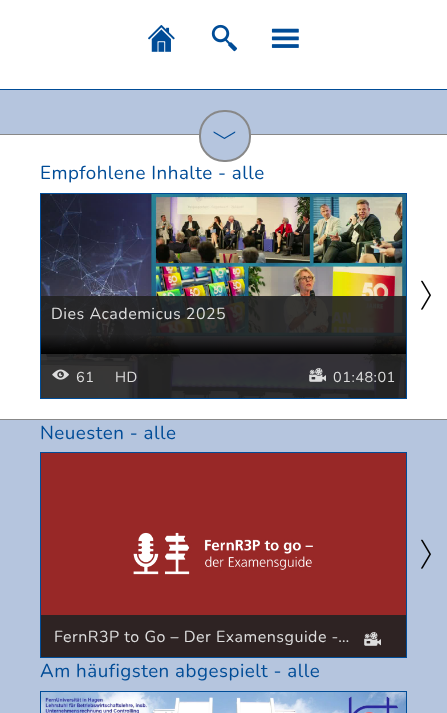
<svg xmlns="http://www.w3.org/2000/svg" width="447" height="713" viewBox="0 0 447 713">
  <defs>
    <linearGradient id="g1" gradientUnits="userSpaceOnUse" x1="224" y1="334" x2="224" y2="354"><stop offset="0" stop-color="#000000" stop-opacity="0"/><stop offset="1" stop-color="#000000"/></linearGradient>
  </defs>
  <rect width="100%" height="100%" fill="#ffffff"/>
  <rect x="0" y="89" width="447" height="1" fill="#004c97"/>
  <image x="148" y="25" width="27" height="27" href="img1.png"/>
  <image x="211" y="24" width="27" height="28" href="img2.png"/>
  <image x="271" y="28" width="28" height="20" href="img3.png"/>
  <rect x="0" y="90" width="447" height="623" fill="#b5c5de"/>
  <rect x="0" y="135" width="447" height="284" fill="#ffffff"/>
  <rect x="0" y="134" width="447" height="1" fill="#888888"/>
  <rect x="200" y="111" width="50" height="50" rx="24" fill="#b5c5de" stroke="#888888" stroke-width="2"/>
  <image x="213" y="131" width="23" height="8" href="img4.png"/>
  <text x="40" y="179" font-family="Nunito" font-size="18.75" letter-spacing="0.5" fill="#004c97">Empfohlene Inhalte - alle</text>
  <image x="421" y="280" width="10" height="30" href="img5.png"/>
  <rect x="40.5" y="193.5" width="366" height="205" fill="none" stroke="#004c97"/>
  <image x="41" y="194" width="365" height="204" href="img6.png"/>
  <rect x="41" y="296" width="365" height="102" fill="#222222" fill-opacity="0.9"/>
  <text x="51" y="319" font-family="Nunito" font-size="16" letter-spacing="0.5" fill="#dddddd">Dies Academicus 2025</text>
  <rect x="41" y="335" width="365" height="19" fill="url(#g1)"/>
  <image x="52" y="369" width="17" height="11" href="img7.png"/>
  <text x="76" y="382" font-family="Nunito" font-size="14.5" letter-spacing="0.5" fill="#dddddd">61</text>
  <text x="115" y="382" font-family="Nunito" font-size="14.5" letter-spacing="0.5" fill="#dddddd">HD</text>
  <image x="309" y="368" width="17" height="14" href="img8.png"/>
  <text x="333" y="382" font-family="Nunito" font-size="14.5" letter-spacing="0.5" fill="#dddddd">01:48:01</text>
  <rect x="0" y="419" width="447" height="1" fill="#888888"/>
  <text x="40" y="439" font-family="Nunito" font-size="18.75" letter-spacing="0.5" fill="#004c97">Neuesten - alle</text>
  <image x="421" y="539" width="10" height="30" href="img9.png"/>
  <rect x="40.5" y="452.5" width="366" height="205" fill="none" stroke="#004c97"/>
  <image x="41" y="453" width="365" height="162" href="img10.png"/>
  <rect x="41" y="615" width="365" height="42" fill="#2e2323"/>
  <text x="54" y="642" font-family="Nunito" font-size="16" letter-spacing="0.5" fill="#dddddd">FernR3P to Go – Der Examensguide -…</text>
  <image x="364" y="632" width="17" height="14" href="img11.png"/>
  <text x="40" y="677" font-family="Nunito" font-size="18.75" letter-spacing="0.5" fill="#004c97">Am häufigsten abgespielt - alle</text>
  <rect x="40.5" y="691.5" width="366" height="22" fill="none" stroke="#004c97"/>
  <image x="41" y="692" width="365" height="21" href="img12.png"/>
</svg>
